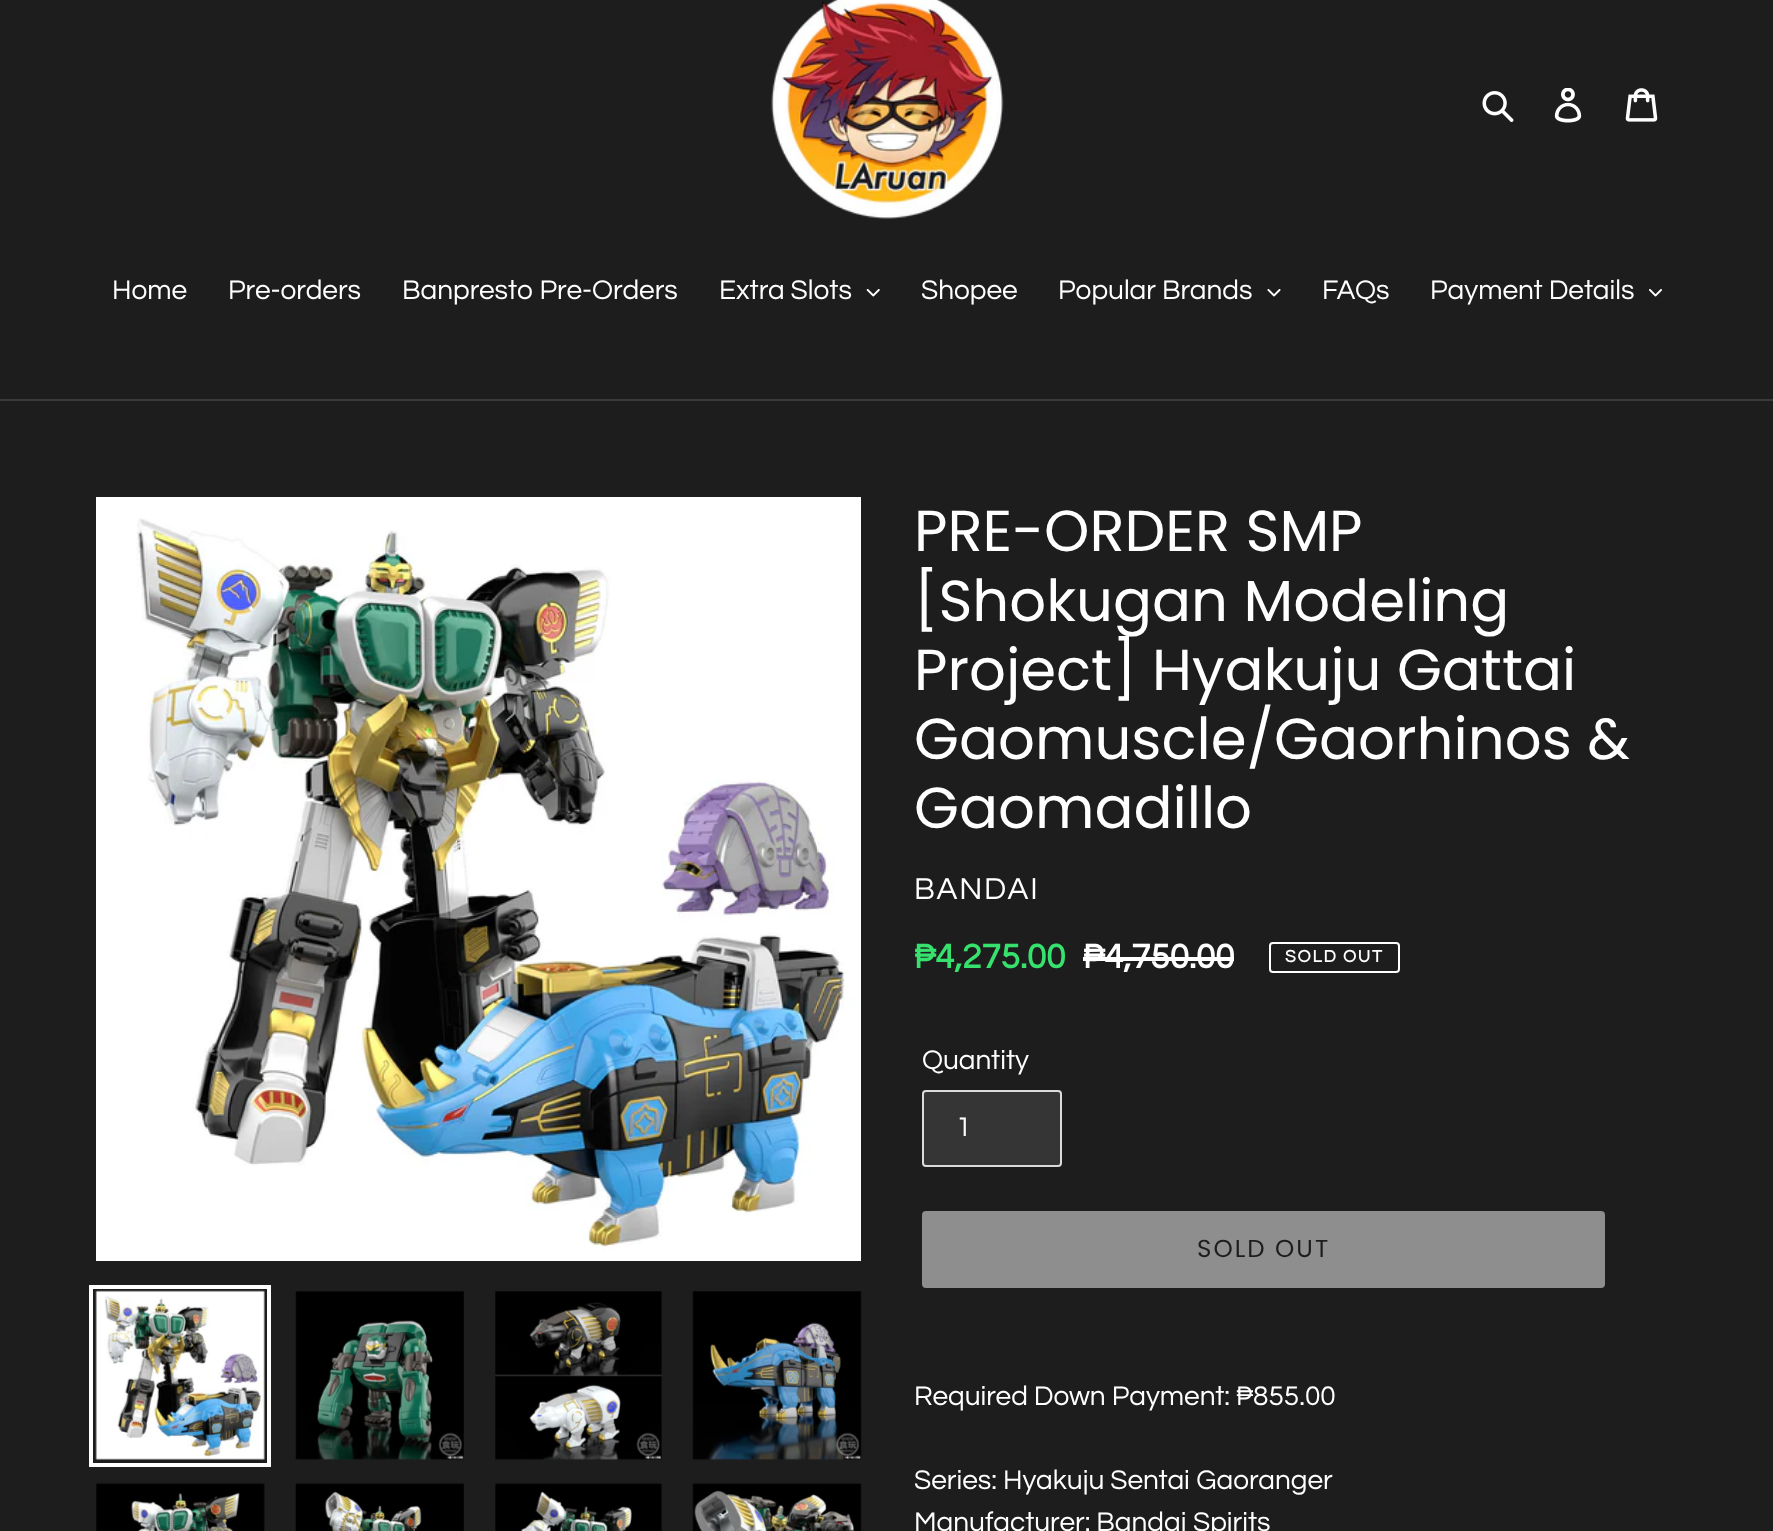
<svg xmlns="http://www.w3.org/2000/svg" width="1773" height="1531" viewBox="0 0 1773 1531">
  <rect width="100%" height="100%" fill="#1d1d1d"/>
  <image x="771" y="0" width="233" height="219" href="img1.png"/>
  <image x="1482" y="91" width="32" height="31" href="img2.png"/>
  <image x="1554" y="88" width="28" height="35" href="img3.png"/>
  <image x="1625" y="88" width="33" height="34" href="img4.png"/>
  <rect x="0" y="399" width="1773" height="2" fill="#3a3a3a"/>
  <text x="112" y="299" font-family="Questrial" font-size="28" fill="#ffffff">Home</text>
  <text x="228" y="299" font-family="Questrial" font-size="28" fill="#ffffff">Pre-orders</text>
  <text x="402" y="299" font-family="Questrial" font-size="28" fill="#ffffff">Banpresto Pre-Orders</text>
  <text x="719" y="299" font-family="Questrial" font-size="28" fill="#ffffff">Extra Slots</text>
  <image x="866" y="289" width="14" height="8" href="img5.png"/>
  <text x="921" y="299" font-family="Questrial" font-size="28" fill="#ffffff">Shopee</text>
  <text x="1058" y="299" font-family="Questrial" font-size="28" fill="#ffffff">Popular Brands</text>
  <image x="1267" y="289" width="14" height="8" href="img6.png"/>
  <text x="1322" y="299" font-family="Questrial" font-size="28" fill="#ffffff">FAQs</text>
  <text x="1430" y="299" font-family="Questrial" font-size="28" fill="#ffffff">Payment Details</text>
  <image x="1649" y="289" width="13" height="8" href="img7.png"/>
  <image x="96" y="497" width="765" height="764" href="img8.png"/>
  <rect x="91" y="1287" width="178" height="178" fill="none" stroke="#ffffff" stroke-width="4"/>
  <image x="95" y="1290" width="170" height="170" href="img9.png"/>
  <image x="295" y="1291" width="169" height="169" href="img10.png"/>
  <image x="495" y="1291" width="167" height="169" href="img11.png"/>
  <image x="692" y="1291" width="170" height="169" href="img12.png"/>
  <image x="96" y="1483" width="169" height="48" href="img13.png"/>
  <image x="295" y="1483" width="169" height="48" href="img14.png"/>
  <image x="495" y="1483" width="167" height="48" href="img15.png"/>
  <image x="692" y="1483" width="170" height="48" href="img16.png"/>
  <text x="914" y="551" font-family="Poppins" font-size="57.75" fill="#ffffff">PRE-ORDER SMP</text>
  <text x="914" y="621" font-family="Poppins" font-size="57.75" fill="#ffffff">[Shokugan Modeling</text>
  <text x="914" y="690" font-family="Poppins" font-size="57.75" fill="#ffffff">Project] Hyakuju Gattai</text>
  <text x="914" y="759" font-family="Poppins" font-size="57.75" fill="#ffffff">Gaomuscle/Gaorhinos &amp;</text>
  <text x="914" y="828" font-family="Poppins" font-size="57.75" fill="#ffffff">Gaomadillo</text>
  <text x="914" y="899" font-family="Questrial" font-size="31.5" letter-spacing="1.75" fill="#ffffff">BANDAI</text>
  <text x="914" y="968" font-family="Questrial" font-size="35" font-weight="bold" fill="#37e16e">₱4,275.00</text>
  <text x="1083" y="968" font-family="Questrial" font-size="35" font-weight="bold" fill="#ffffff">₱4,750.00</text>
  <rect x="1083" y="957" width="151" height="4" fill="#ffffff"/>
  <rect x="1270" y="943" width="129" height="29" rx="3" fill="none" stroke="#ffffff" stroke-width="2"/>
  <text x="1285" y="962" font-family="Questrial" font-size="17.5" font-weight="bold" letter-spacing="1.75" fill="#ffffff">SOLD OUT</text>
  <text x="922" y="1069" font-family="Questrial" font-size="28" fill="#ffffff">Quantity</text>
  <rect x="923" y="1091" width="138" height="75" rx="3" fill="#353535" stroke="#dbdbdb" stroke-width="2"/>
  <text x="956" y="1136" font-family="Questrial" font-size="28" fill="#ffffff">1</text>
  <rect x="922" y="1211" width="683" height="77" rx="4" fill="#8e8e8e"/>
  <text x="1197" y="1257" font-family="Poppins" font-size="24.5" letter-spacing="2" fill="#1d1d1d">SOLD OUT</text>
  <text x="914" y="1405" font-family="Questrial" font-size="28" fill="#ffffff">Required Down Payment: ₱855.00</text>
  <text x="914" y="1489" font-family="Questrial" font-size="28" fill="#ffffff">Series: Hyakuju Sentai Gaoranger</text>
  <text x="914" y="1531" font-family="Questrial" font-size="28" fill="#ffffff">Manufacturer: Bandai Spirits</text>
</svg>
